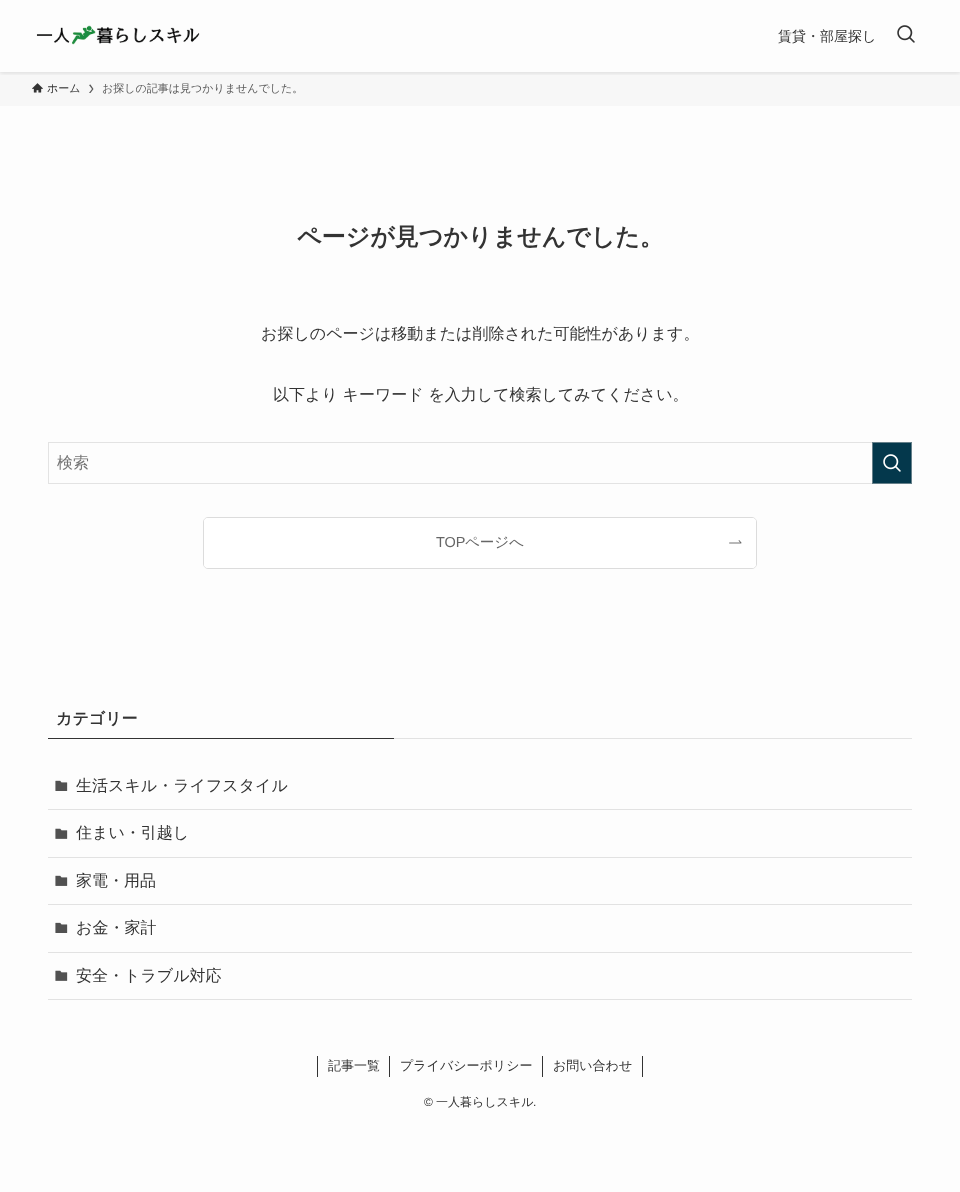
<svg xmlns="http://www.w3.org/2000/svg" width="960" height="1192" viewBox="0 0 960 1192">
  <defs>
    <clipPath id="clip1"><rect x="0" y="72" width="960" height="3"/></clipPath>
    <filter id="blur1" x="-50%" y="-200%" width="200%" height="500%"><feGaussianBlur stdDeviation="2"/></filter>
  </defs>
  <rect width="100%" height="100%" fill="#fdfdfd"/>
  <rect x="0" y="72" width="960" height="34" fill="#f7f7f7"/>
  <g clip-path="url(#clip1)">
    <rect x="0" y="1" width="960" height="72" fill="#000000" fill-opacity="0.12" filter="url(#blur1)"/>
  </g>
  <image x="36" y="25" width="164" height="20" href="img1.png"/>
  <text x="778" y="41" font-family="WenQuanYi Zen Hei" font-size="14" font-weight="500" fill="#333333">賃貸・部屋探し</text>
  <image x="897" y="25" width="18" height="18" href="img2.png"/>
  <image x="32" y="83" width="11" height="10" href="img3.png"/>
  <text x="47" y="92" font-family="WenQuanYi Zen Hei" font-size="11" font-weight="500" fill="#333333">ホーム</text>
  <path d="M90.5 84.5L89 85L92 89L89 93H90.5L93.5 89Z" fill="#5a5a5a"/>
  <text x="102" y="92" font-family="WenQuanYi Zen Hei" font-size="11" font-weight="500" fill="#5a5a5a">お探しの記事は見つかりませんでした。</text>
  <text x="297" y="245" font-family="WenQuanYi Zen Hei" font-size="24" font-weight="bold" fill="#333333">ページが見つかりませんでした。</text>
  <text x="261" y="339" font-family="WenQuanYi Zen Hei" font-size="16" font-weight="500" fill="#333333">お探しのページは移動または削除された可能性があります。</text>
  <text x="273" y="400" font-family="WenQuanYi Zen Hei" font-size="16" font-weight="500" fill="#333333">以下より キーワード を入力して検索してみてください。</text>
  <rect x="48.5" y="442.5" width="863" height="41" fill="none" stroke="#e3e3e3"/>
  <text x="57" y="468" font-family="WenQuanYi Zen Hei" font-size="16" font-weight="500" fill="#757575">検索</text>
  <rect x="872.5" y="442.5" width="39" height="41" fill="#04384c" stroke="#66808a"/>
  <image x="883" y="454" width="18" height="18" href="img4.png"/>
  <rect x="203.5" y="517.5" width="553" height="51" rx="4.5" fill="none" stroke="#dcdcdc"/>
  <rect x="204" y="518" width="552" height="50" rx="4" fill="#ffffff"/>
  <text x="436" y="547" font-family="Liberation Sans" font-size="14.5" fill="#666666">TOP</text>
  <text x="465" y="547" font-family="WenQuanYi Zen Hei" font-size="14.5" font-weight="500" fill="#666666">ページへ</text>
  <image x="729" y="540" width="13" height="4" href="img5.png"/>
  <text x="56" y="724" font-family="WenQuanYi Zen Hei" font-size="16" font-weight="bold" fill="#333333">カテゴリー</text>
  <rect x="48" y="738" width="346" height="1" fill="#333333"/>
  <rect x="394" y="738" width="518" height="1" fill="#e2e2e2"/>
  <rect x="48" y="809" width="864" height="1" fill="#e2e2e2"/>
  <image x="55" y="780" width="13" height="11" href="img6.png"/>
  <text x="76" y="791" font-family="WenQuanYi Zen Hei" font-size="16" font-weight="500" fill="#333333">生活スキル・ライフスタイル</text>
  <rect x="48" y="857" width="864" height="1" fill="#e2e2e2"/>
  <image x="55" y="828" width="13" height="11" href="img7.png"/>
  <text x="76" y="838" font-family="WenQuanYi Zen Hei" font-size="16" font-weight="500" fill="#333333">住まい・引越し</text>
  <rect x="48" y="904" width="864" height="1" fill="#e2e2e2"/>
  <image x="55" y="875" width="13" height="11" href="img8.png"/>
  <text x="76" y="886" font-family="WenQuanYi Zen Hei" font-size="16" font-weight="500" fill="#333333">家電・用品</text>
  <rect x="48" y="952" width="864" height="1" fill="#e2e2e2"/>
  <image x="55" y="922" width="13" height="11" href="img9.png"/>
  <text x="76" y="933" font-family="WenQuanYi Zen Hei" font-size="16" font-weight="500" fill="#333333">お金・家計</text>
  <rect x="48" y="999" width="864" height="1" fill="#e2e2e2"/>
  <image x="55" y="970" width="13" height="11" href="img10.png"/>
  <text x="76" y="981" font-family="WenQuanYi Zen Hei" font-size="16" font-weight="500" fill="#333333">安全・トラブル対応</text>
  <rect x="389" y="1056" width="1" height="21" fill="#333333"/>
  <rect x="317" y="1056" width="1" height="21" fill="#333333"/>
  <text x="328" y="1070" font-family="WenQuanYi Zen Hei" font-size="13" font-weight="500" fill="#333333">記事一覧</text>
  <rect x="542" y="1056" width="1" height="21" fill="#333333"/>
  <text x="400" y="1070" font-family="WenQuanYi Zen Hei" font-size="13" font-weight="500" fill="#333333">プライバシーポリシー</text>
  <rect x="642" y="1056" width="1" height="21" fill="#333333"/>
  <text x="553" y="1070" font-family="WenQuanYi Zen Hei" font-size="13" font-weight="500" fill="#333333">お問い合わせ</text>
  <text x="424" y="1106" font-family="Liberation Sans" font-size="12" fill="#333333">©</text>
  <text x="436" y="1106" font-family="WenQuanYi Zen Hei" font-size="12" font-weight="500" fill="#333333">一人暮らしスキル</text>
  <text x="533" y="1106" font-family="Liberation Sans" font-size="12" fill="#333333">.</text>
</svg>
